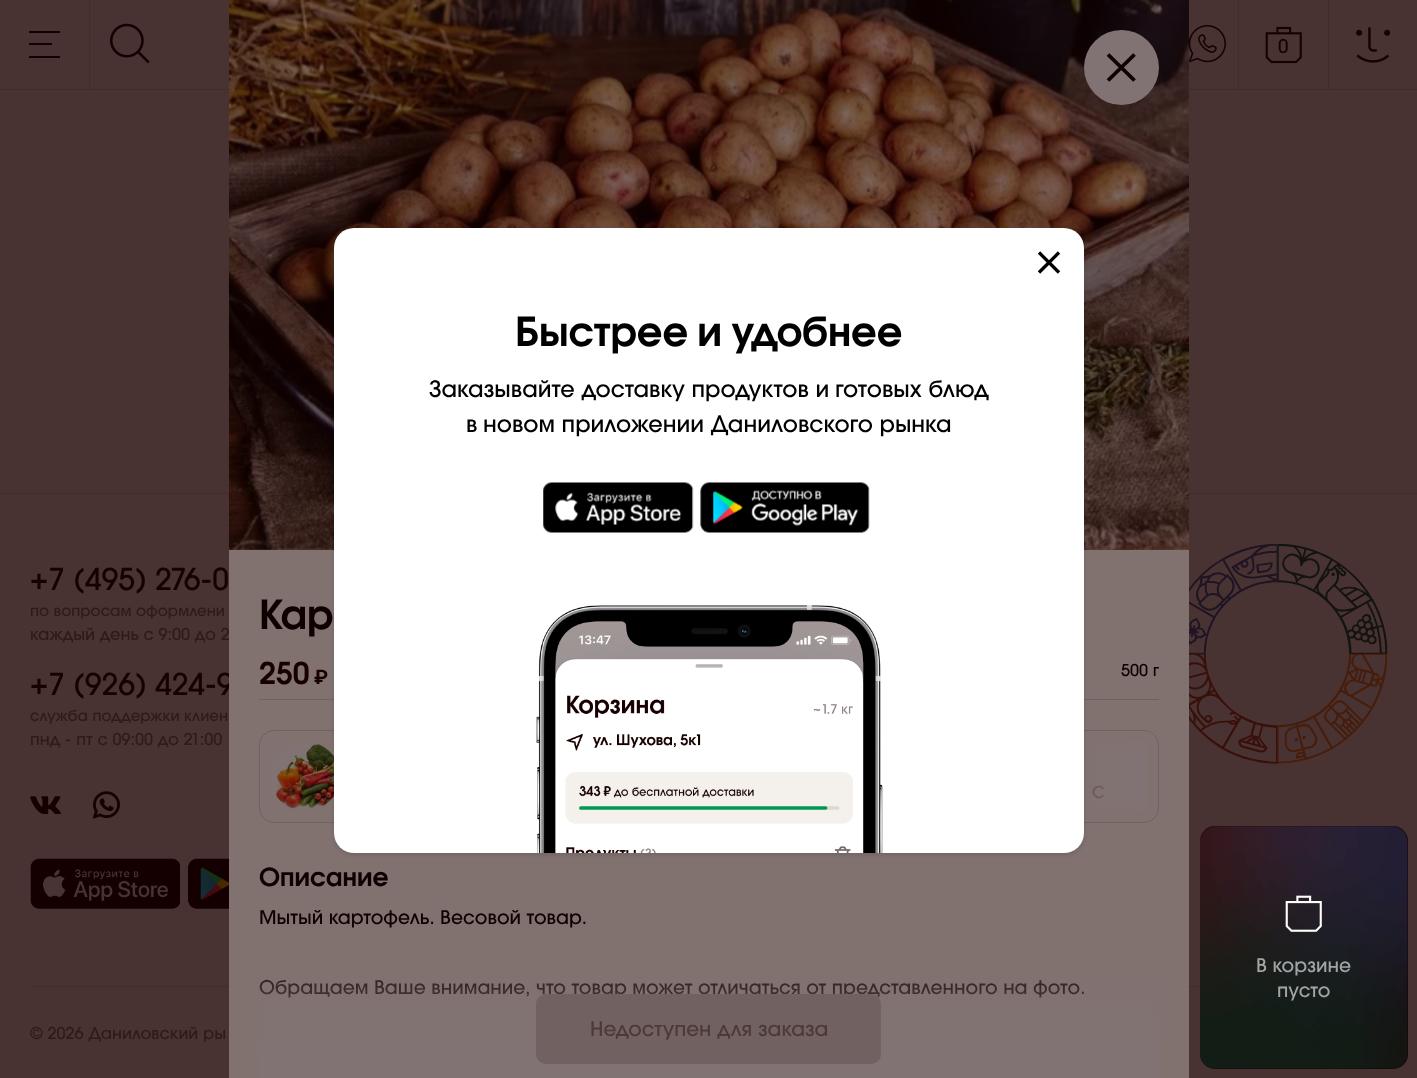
<svg xmlns="http://www.w3.org/2000/svg" width="1417" height="1078" viewBox="0 0 1417 1078">
  <defs>
    <linearGradient id="g1" gradientUnits="userSpaceOnUse" x1="1148" y1="776" x2="1023" y2="776"><stop offset="0" stop-color="#817373"/><stop offset="1" stop-color="#817373" stop-opacity="0"/></linearGradient>
    <linearGradient id="g2" gradientUnits="userSpaceOnUse" x1="709" y1="939" x2="709" y2="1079"><stop offset="0" stop-color="#817373" stop-opacity="0"/><stop offset="0.93" stop-color="#817373"/></linearGradient>
    <filter id="blur1" x="-50%" y="-200%" width="200%" height="500%"><feGaussianBlur stdDeviation="2.5"/></filter>
    <filter id="blur2" x="-50%" y="-200%" width="200%" height="500%"><feGaussianBlur stdDeviation="0.5"/></filter>
  </defs>
  <rect width="100%" height="100%" fill="#483332"/>
  <rect x="0" y="89" width="1417" height="1" fill="#412c2b"/>
  <rect x="89" y="0" width="1" height="89" fill="#412c2b"/>
  <rect x="29" y="31" width="31" height="2" fill="#140000"/>
  <rect x="29" y="43" width="23" height="2" fill="#140000"/>
  <rect x="29" y="56" width="31" height="2" fill="#140000"/>
  <image x="110" y="23" width="40" height="41" href="img1.png"/>
  <image x="1189" y="25" width="37" height="38" href="img2.png"/>
  <rect x="1238" y="0" width="1" height="89" fill="#412c2b"/>
  <image x="1265" y="26" width="37" height="38" href="img3.png"/>
  <text x="1278" y="53" font-family="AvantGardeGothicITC" font-size="18.75" font-weight="500" fill="#190000">0</text>
  <rect x="1328" y="0" width="1" height="89" fill="#412c2b"/>
  <image x="1356" y="27" width="35" height="36" href="img4.png"/>
  <rect x="0" y="493" width="1417" height="1" fill="#412c2b"/>
  <text x="30" y="590" font-family="AvantGardeGothicITC" font-size="30" font-weight="500" fill="#190000">+7 (495) 276-0</text>
  <text x="30" y="616" font-family="AvantGardeGothicITC" font-size="15" font-weight="500" fill="#301a19">по вопросам оформлени</text>
  <text x="30" y="640" font-family="AvantGardeGothicITC" font-size="16.25" font-weight="500" fill="#301a19">каждый день с 9:00 до 2</text>
  <text x="30" y="695" font-family="AvantGardeGothicITC" font-size="30" font-weight="500" fill="#190000">+7 (926) 424-9</text>
  <text x="30" y="721" font-family="AvantGardeGothicITC" font-size="15" font-weight="500" fill="#301a19">cлужба поддержки клиен</text>
  <text x="30" y="745" font-family="AvantGardeGothicITC" font-size="16.25" font-weight="500" fill="#301a19">пнд - пт c 09:00 до 21:00</text>
  <image x="30" y="796" width="31" height="18" href="img5.png"/>
  <image x="93" y="791" width="27" height="28" href="img6.png"/>
  <image x="30" y="858" width="150" height="51" href="img7.png"/>
  <image x="188" y="858" width="41" height="51" href="img8.png"/>
  <image x="1189" y="544" width="199" height="220" href="img9.png"/>
  <rect x="30" y="986" width="1170" height="1" fill="#412c2b"/>
  <text x="30" y="1039" font-family="AvantGardeGothicITC" font-size="16.25" font-weight="500" fill="#301a19">© 2026 Даниловский ры</text>
  <rect x="229" y="548" width="960" height="530" fill="#817270"/>
  <image x="229" y="0" width="960" height="550" href="img10.png"/>
  <circle cx="1121.5" cy="67.5" r="37.5" fill="#817373"/>
  <path d="M1108 54.5L1134.5 80.5M1134.5 54.5L1108 80.5" fill="none" stroke="#0e0000" stroke-width="3.8" stroke-linejoin="round"/>
  <text x="259" y="629" font-family="AvantGardeGothicITC" font-size="40" font-weight="600" fill="#0e0000">Кар</text>
  <rect x="259" y="699" width="900" height="1" fill="#716160"/>
  <text x="259" y="684" font-family="AvantGardeGothicITC" font-size="30" font-weight="600" fill="#190000">250</text>
  <text x="314" y="684" font-family="Roboto" font-size="20" font-weight="bold" fill="#190000">₽</text>
  <text x="1121" y="676" font-family="AvantGardeGothicITC" font-size="16.25" font-weight="500" fill="#0e0000">500 г</text>
  <rect x="259.5" y="730.5" width="899" height="92" rx="14.5" fill="none" stroke="#716160"/>
  <image x="270" y="742" width="64" height="69" href="img11.png"/>
  <text x="1092" y="798" font-family="AvantGardeGothicITC" font-size="16.25" font-weight="500" fill="#4d3938">С</text>
  <rect x="1093" y="741" width="55" height="70" fill="url(#g1)"/>
  <text x="259" y="886" font-family="AvantGardeGothicITC" font-size="25" font-weight="600" fill="#0e0000">Описание</text>
  <text x="259" y="924" font-family="AvantGardeGothicITC" font-size="18.75" font-weight="500" fill="#0e0000">Мытый картофель. Весовой товар.</text>
  <text x="259" y="994" font-family="AvantGardeGothicITC" font-size="18.75" font-weight="500" fill="#0e0000">Обращаем Ваше внимание, что товар может отличаться от представленного на фото.</text>
  <rect x="259" y="979" width="900" height="99" fill="url(#g2)"/>
  <rect x="536" y="994" width="345" height="70" rx="10" fill="#716160"/>
  <text x="590" y="1036" font-family="AvantGardeGothicITC" font-size="20" font-weight="500" fill="#4d3938">Недоступен для заказа</text>
  <rect x="1200" y="826" width="208" height="243" rx="15" fill="#190000"/>
  <image x="1200" y="826" width="208" height="243" href="img12.png"/>
  <image x="1285" y="895" width="37" height="37" href="img13.png"/>
  <text x="1256" y="972" font-family="AvantGardeGothicITC" font-size="18.75" font-weight="500" fill="#a3a5a5">В корзине</text>
  <text x="1277" y="997" font-family="AvantGardeGothicITC" font-size="18.75" font-weight="500" fill="#a3a5a5">пусто</text>
  <rect x="334" y="230" width="750" height="625" rx="20" fill="#000000" fill-opacity="0.12" filter="url(#blur1)"/>
  <rect x="334" y="228" width="750" height="625" rx="20" fill="#000000" fill-opacity="0.25" filter="url(#blur2)"/>
  <rect x="334" y="228" width="750" height="625" rx="20" fill="#ffffff"/>
  <path d="M1039 252.5L1059 272.5M1059 252.5L1039 272.5" fill="none" stroke="#000000" stroke-width="3.3" stroke-linejoin="round"/>
  <text x="515" y="346" font-family="AvantGardeGothicITC" font-size="40" font-weight="600" fill="#000000">Быстрее и удобнее</text>
  <text x="429" y="397" font-family="AvantGardeGothicITC" font-size="22.5" font-weight="500" fill="#000000">Заказывайте доставку продуктов и</text>
  <text x="835" y="397" font-family="AvantGardeGothicITC" font-size="22.5" font-weight="500" fill="#000000">готовых блюд</text>
  <text x="466" y="432" font-family="AvantGardeGothicITC" font-size="22.5" font-weight="500" fill="#000000">в</text>
  <text x="483" y="432" font-family="AvantGardeGothicITC" font-size="22.5" font-weight="500" fill="#000000">новом приложении Даниловского рынка</text>
  <image x="543" y="482" width="151" height="51" href="img14.png"/>
  <image x="700" y="482" width="170" height="51" href="img15.png"/>
  <image x="536" y="605" width="347" height="248" href="img16.png"/>
</svg>
